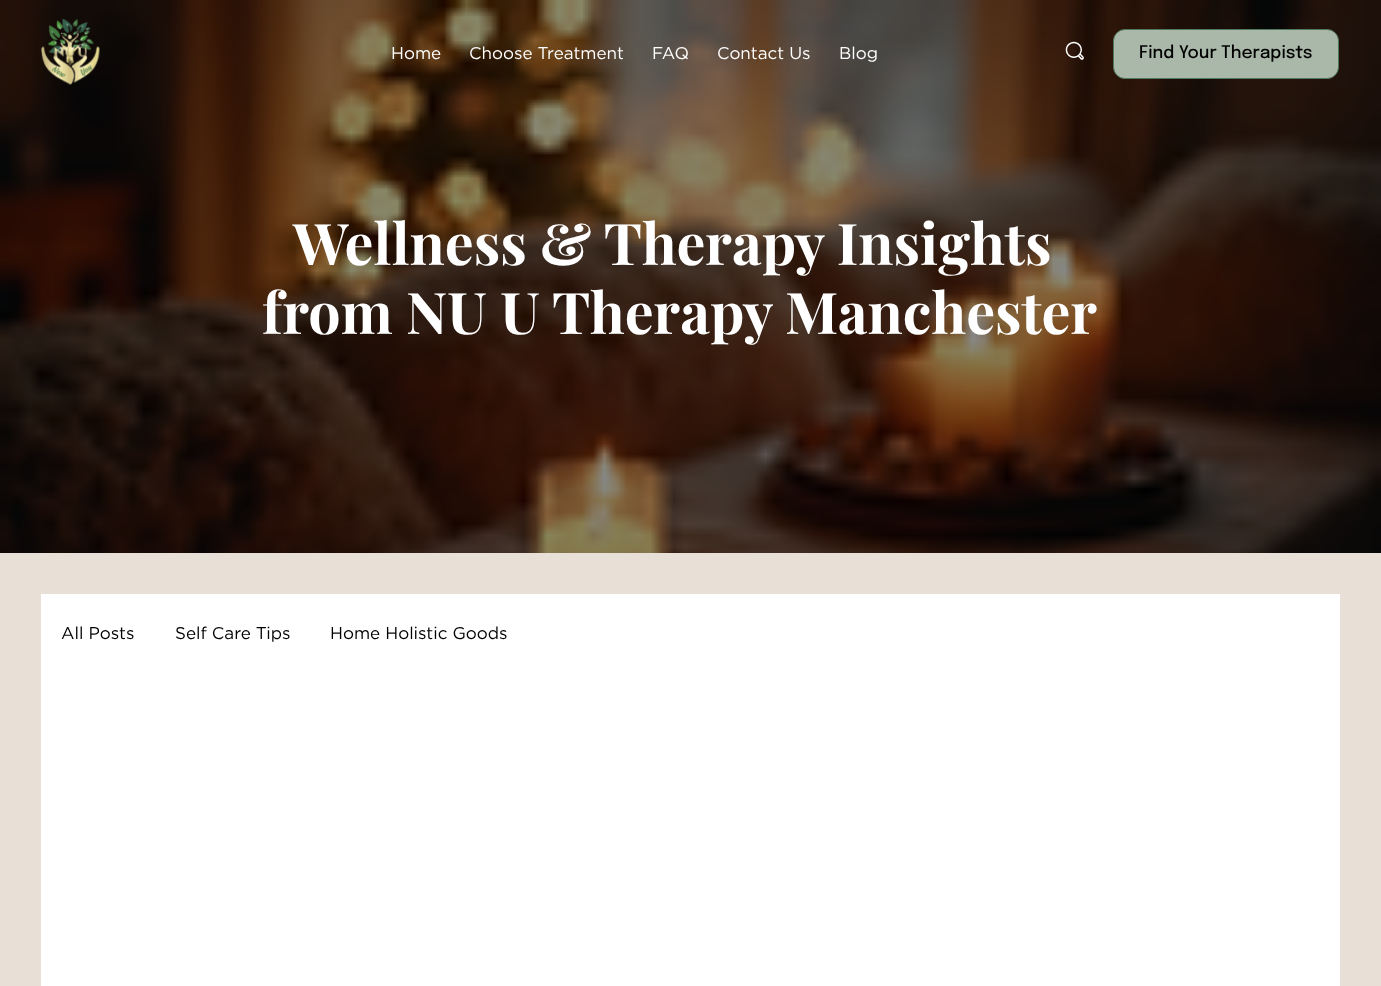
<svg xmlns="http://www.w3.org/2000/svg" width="1381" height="986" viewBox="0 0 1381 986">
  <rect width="100%" height="100%" fill="#000000"/>
  <image x="0" y="0" width="1381" height="553" href="img3.png"/>
  <image x="41" y="18" width="59" height="67" href="img1.png"/>
  <text x="391" y="59" font-family="Gotham" font-size="17" fill="#ffffff">Home</text>
  <text x="469" y="59" font-family="Gotham" font-size="17" fill="#ffffff">Choose Treatment</text>
  <text x="652" y="59" font-family="Gotham" font-size="17" fill="#ffffff">FAQ</text>
  <text x="717" y="59" font-family="Gotham" font-size="17" fill="#ffffff">Contact Us</text>
  <text x="839" y="59" font-family="Gotham" font-size="17" fill="#ffffff">Blog</text>
  <image x="1065" y="41" width="19" height="19" href="img2.png"/>
  <rect x="1113.5" y="29.5" width="225" height="49" rx="11.5" fill="#aab8aa" stroke="#50785e"/>
  <text x="1139" y="58" font-family="Epilogue" font-size="17.25" font-weight="500" fill="#000000">Find Your Therapists</text>
  <text x="293" y="265" font-family="Playfair Display" font-size="57.4" font-weight="bold" fill="#ffffff">Wellness &amp; Therapy Insights</text>
  <text x="262" y="334" font-family="Playfair Display" font-size="57.4" font-weight="bold" fill="#ffffff">from NU U Therapy Manchester</text>
  <rect x="0" y="553" width="1381" height="433" fill="#e8e0d7"/>
  <rect x="41" y="594" width="1299" height="392" fill="#ffffff"/>
  <text x="61" y="639" font-family="Gotham" font-size="17" fill="#000000">All Posts</text>
  <text x="175" y="639" font-family="Gotham" font-size="17" fill="#000000">Self Care Tips</text>
  <text x="330" y="639" font-family="Gotham" font-size="17" fill="#000000">Home Holistic Goods</text>
</svg>
